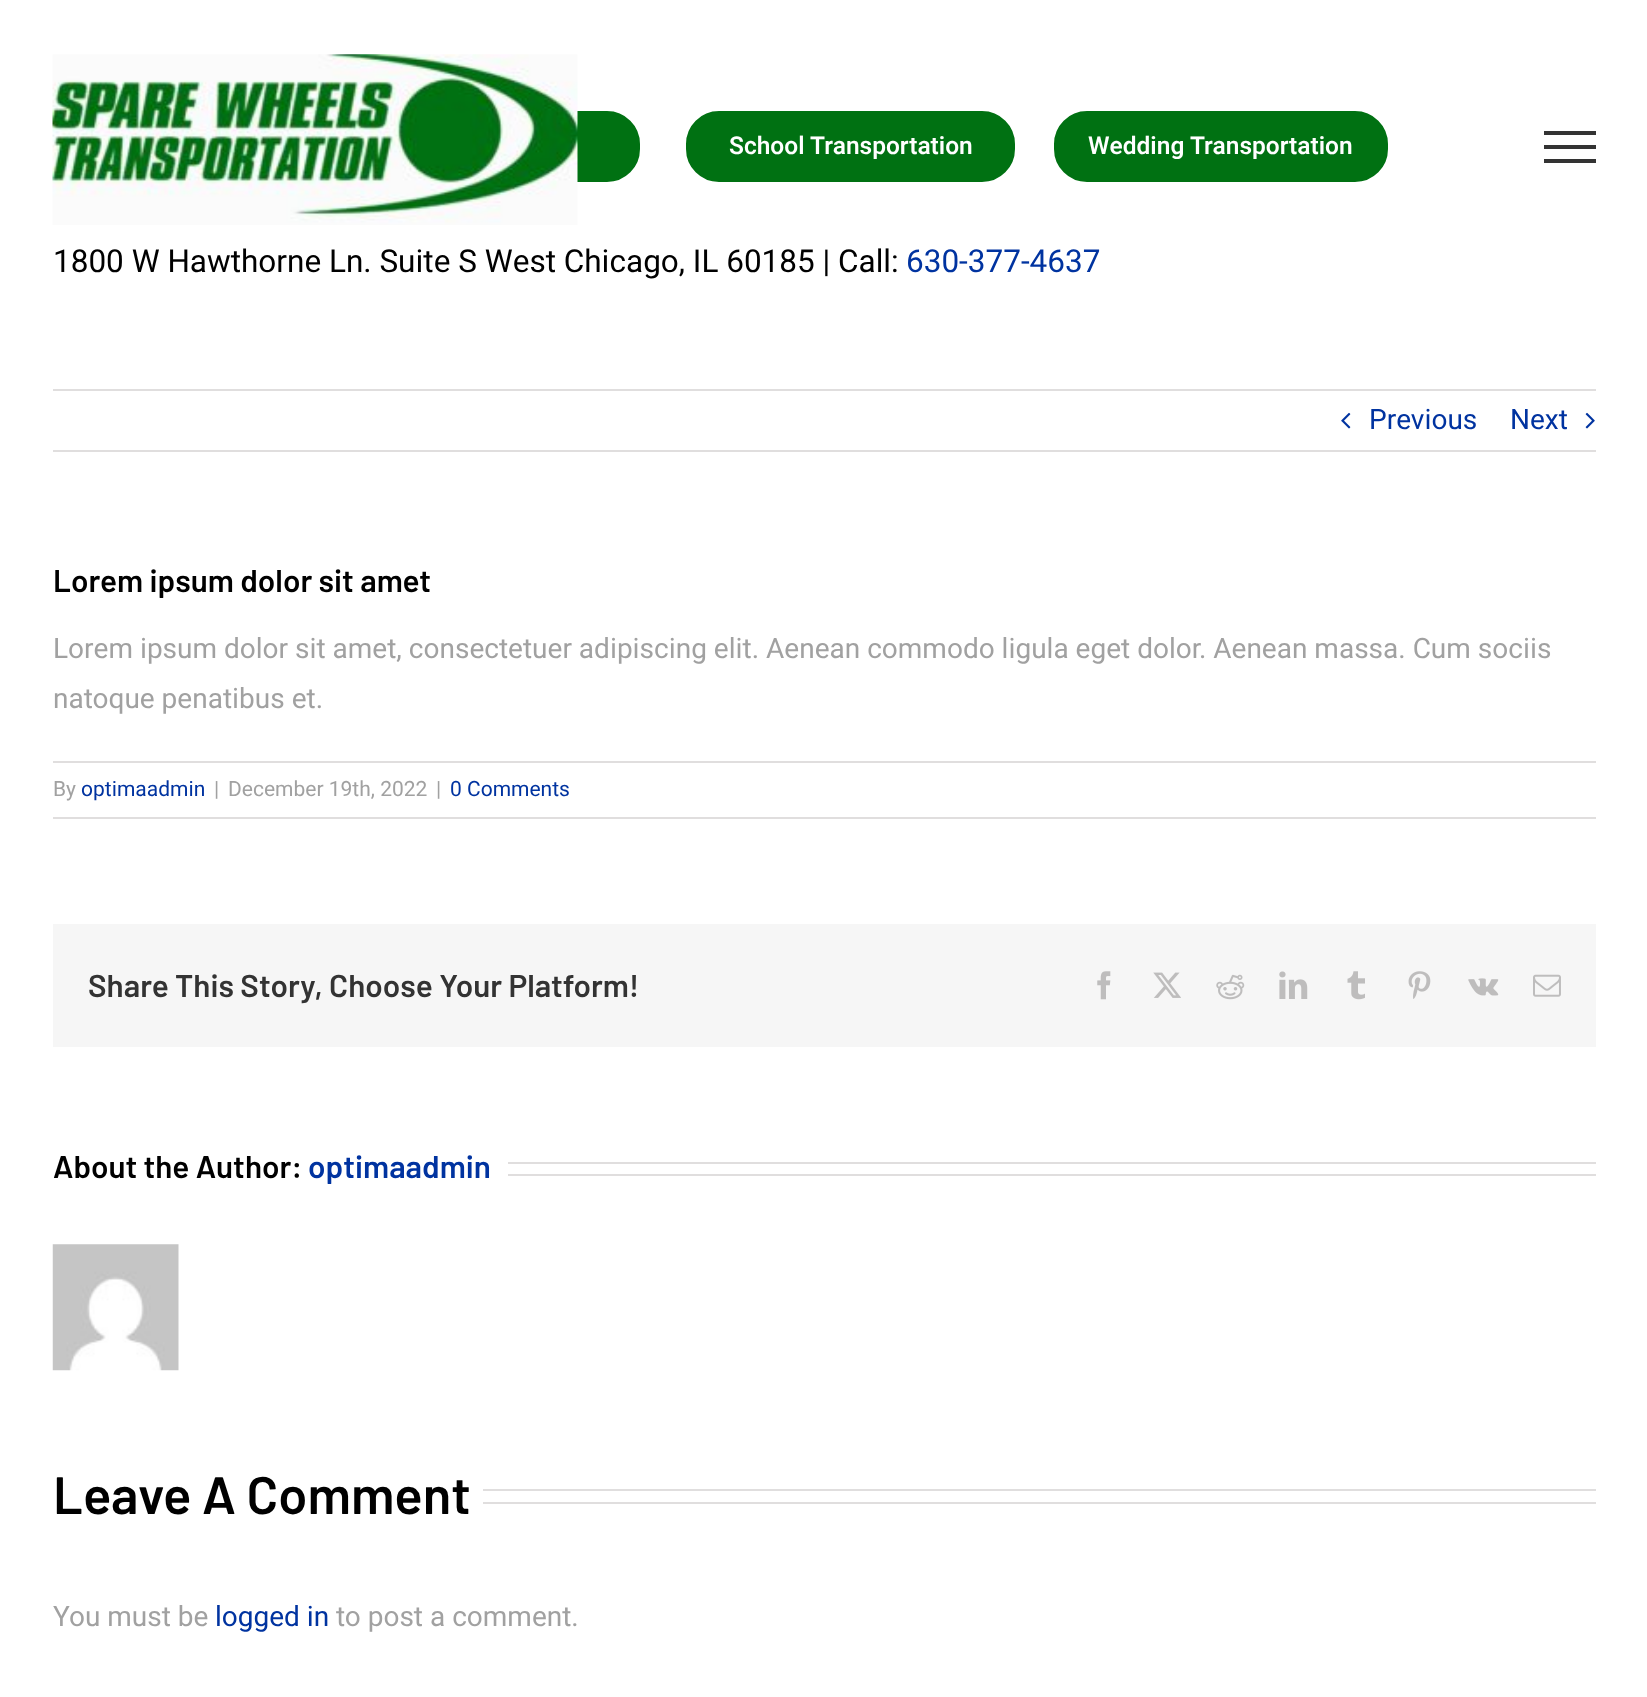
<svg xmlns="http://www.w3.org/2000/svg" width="1647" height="1697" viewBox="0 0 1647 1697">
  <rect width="100%" height="100%" fill="#ffffff"/>
  <rect x="311" y="110" width="330" height="73" rx="34" fill="#007112" stroke="#ffffff" stroke-width="2"/>
  <image x="52" y="54" width="526" height="171" href="img1.png"/>
  <rect x="685" y="110" width="331" height="73" rx="34" fill="#007112" stroke="#ffffff" stroke-width="2"/>
  <text x="729" y="154" font-family="Heebo" font-size="24.5" font-weight="600" fill="#ffffff">School Transportation</text>
  <rect x="1053" y="110" width="336" height="73" rx="34" fill="#007112" stroke="#ffffff" stroke-width="2"/>
  <text x="1088" y="154" font-family="Heebo" font-size="24.5" font-weight="600" fill="#ffffff">Wedding Transportation</text>
  <rect x="1544" y="131" width="52" height="4" fill="#333333"/>
  <rect x="1544" y="145" width="52" height="4" fill="#333333"/>
  <rect x="1544" y="159" width="52" height="4" fill="#333333"/>
  <text x="53" y="272" font-family="Heebo" font-size="31.5" fill="#000000">1800 W Hawthorne Ln. Suite S West Chicago, IL 60185 | Call:</text>
  <text x="906" y="272" font-family="Heebo" font-size="31.5" fill="#0033a0">630-377-4637</text>
  <rect x="53" y="389" width="1543" height="2" fill="#e0dede"/>
  <rect x="53" y="450" width="1543" height="2" fill="#e0dede"/>
  <image x="1341" y="412" width="10" height="17" href="img2.png"/>
  <text x="1369" y="429" font-family="Heebo" font-size="28" fill="#0033a0">Previous</text>
  <text x="1510" y="429" font-family="Heebo" font-size="28" fill="#0033a0">Next</text>
  <image x="1585" y="412" width="10" height="17" href="img3.png"/>
  <text x="53" y="592" font-family="Barlow" font-size="31.5" font-weight="600" fill="#000000">Lorem ipsum dolor sit amet</text>
  <text x="53" y="658" font-family="Heebo" font-size="28" fill="#a1a1a1">Lorem ipsum dolor sit amet, consectetuer adipiscing elit. Aenean commodo ligula eget dolor. Aenean massa. Cum sociis</text>
  <text x="53" y="708" font-family="Heebo" font-size="28" fill="#a1a1a1">natoque penatibus et.</text>
  <rect x="53" y="761" width="1543" height="2" fill="#e0dede"/>
  <rect x="53" y="817" width="1543" height="2" fill="#e0dede"/>
  <text x="53" y="796" font-family="Heebo" font-size="21" fill="#a1a1a1">By</text>
  <text x="81" y="796" font-family="Heebo" font-size="21" fill="#0033a0">optimaadmin</text>
  <text x="214" y="796" font-family="Heebo" font-size="21" fill="#a1a1a1">|</text>
  <text x="228" y="796" font-family="Heebo" font-size="21" fill="#a1a1a1">December 19th, 2022</text>
  <text x="436" y="796" font-family="Heebo" font-size="21" fill="#a1a1a1">|</text>
  <text x="450" y="796" font-family="Heebo" font-size="21" fill="#0033a0">0 Comments</text>
  <rect x="53" y="924" width="1543" height="123" fill="#f6f6f6"/>
  <text x="88" y="997" font-family="Barlow" font-size="31.5" font-weight="600" fill="#333333">Share This Story, Choose Your Platform!</text>
  <image x="1097" y="971" width="14" height="29" href="img4.png"/>
  <image x="1153" y="972" width="28" height="26" href="img5.png"/>
  <image x="1216" y="974" width="29" height="26" href="img6.png"/>
  <image x="1279" y="971" width="29" height="28" href="img7.png"/>
  <image x="1347" y="971" width="18" height="29" href="img8.png"/>
  <image x="1408" y="971" width="23" height="28" href="img9.png"/>
  <image x="1468" y="978" width="31" height="18" href="img10.png"/>
  <image x="1533" y="974" width="28" height="23" href="img11.png"/>
  <text x="53" y="1178" font-family="Barlow" font-size="31.5" font-weight="600" fill="#000000">About the Author:</text>
  <text x="308" y="1178" font-family="Barlow" font-size="31.5" font-weight="600" fill="#0033a0">optimaadmin</text>
  <rect x="508" y="1162" width="1088" height="2" fill="#e0dede"/>
  <rect x="508" y="1174" width="1088" height="2" fill="#e0dede"/>
  <image x="52" y="1244" width="127" height="127" href="img12.png"/>
  <text x="53" y="1514" font-family="Barlow" font-size="52.5" font-weight="600" fill="#000000">Leave A Comment</text>
  <rect x="483" y="1489" width="1113" height="2" fill="#e0dede"/>
  <rect x="483" y="1502" width="1113" height="2" fill="#e0dede"/>
  <text x="53" y="1626" font-family="Heebo" font-size="28" fill="#a1a1a1">You must be</text>
  <text x="215" y="1626" font-family="Heebo" font-size="28" fill="#0033a0">logged in</text>
  <text x="336" y="1626" font-family="Heebo" font-size="28" fill="#a1a1a1">to post a comment.</text>
</svg>
